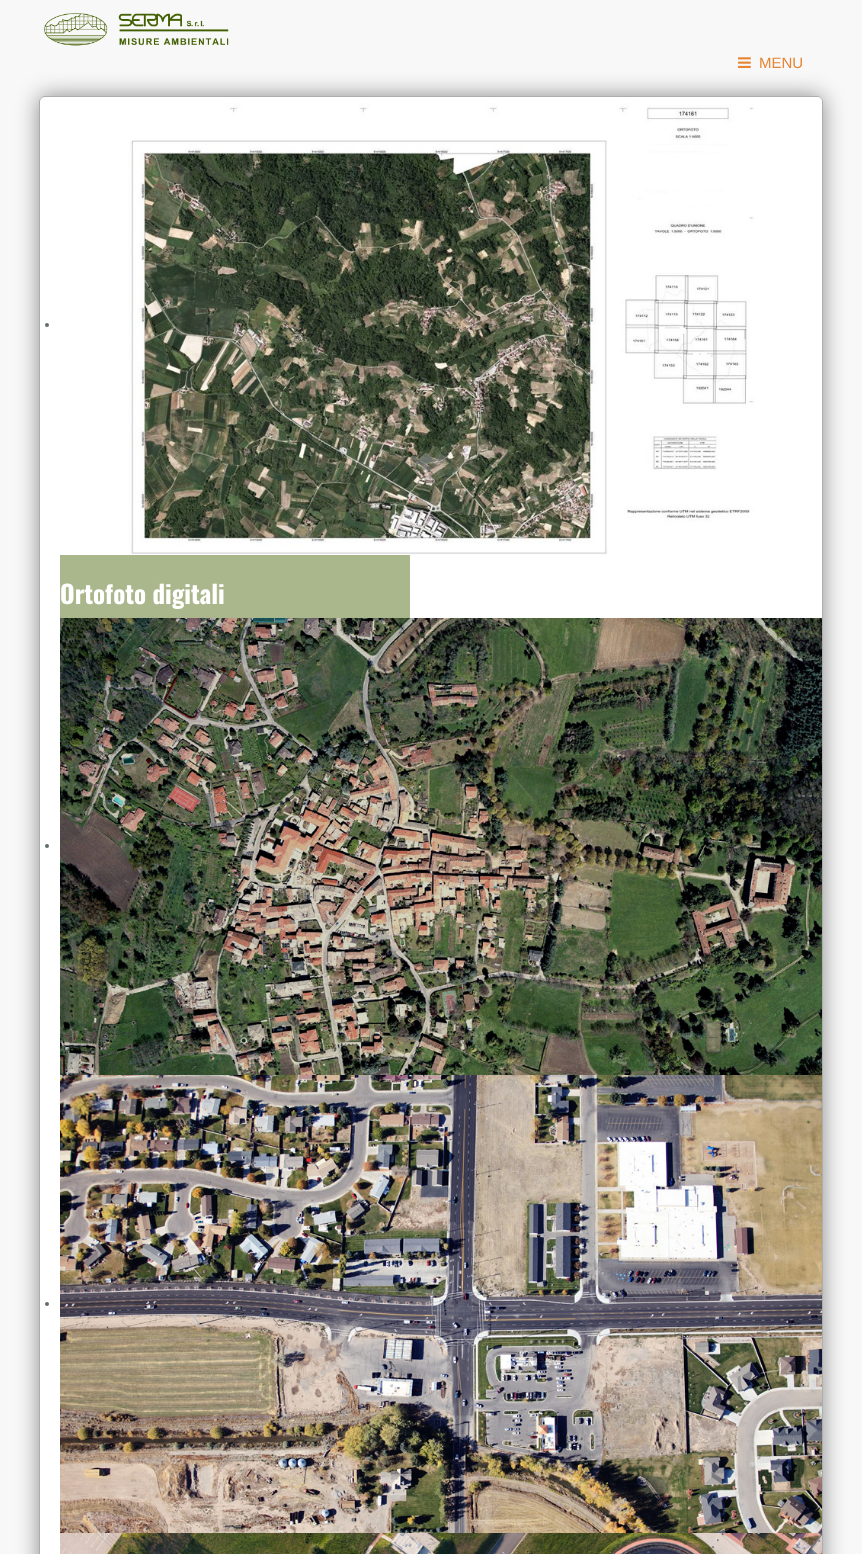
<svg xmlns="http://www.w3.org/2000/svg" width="862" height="1554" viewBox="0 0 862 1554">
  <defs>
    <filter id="blur1" x="-50%" y="-200%" width="200%" height="500%"><feGaussianBlur stdDeviation="11"/></filter>
  </defs>
  <rect width="100%" height="100%" fill="#f8f8f8"/>
  <image x="44" y="13" width="185" height="33" href="img1.png"/>
  <rect x="39" y="96" width="784" height="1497" rx="6" fill="#000000" fill-opacity="0.45" filter="url(#blur1)"/>
  <image x="738" y="57" width="13" height="11" href="img2.png"/>
  <text x="759" y="68" font-family="Liberation Sans" font-size="15" fill="#e68535">MENU</text>
  <rect x="39" y="96" width="784" height="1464" rx="6" fill="#ffffff"/>
  <rect x="39.5" y="96.5" width="783" height="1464" rx="5.5" fill="none" stroke="#000000" stroke-opacity="0.32"/>
  <circle cx="47" cy="325" r="2" fill="#616d6e"/>
  <image x="129" y="97" width="693" height="458" href="img3.png"/>
  <rect x="60" y="555" width="350" height="63" fill="#aab78c"/>
  <text x="60" y="604" font-family="Oswald" font-size="25" font-weight="bold" fill="#ffffff">Ortofoto digitali</text>
  <circle cx="47" cy="846" r="2" fill="#616d6e"/>
  <image x="60" y="618" width="762" height="457" href="img4.png"/>
  <circle cx="47" cy="1304" r="2" fill="#616d6e"/>
  <image x="60" y="1075" width="762" height="458" href="img5.png"/>
  <image x="60" y="1533" width="762" height="21" href="img6.png"/>
</svg>
